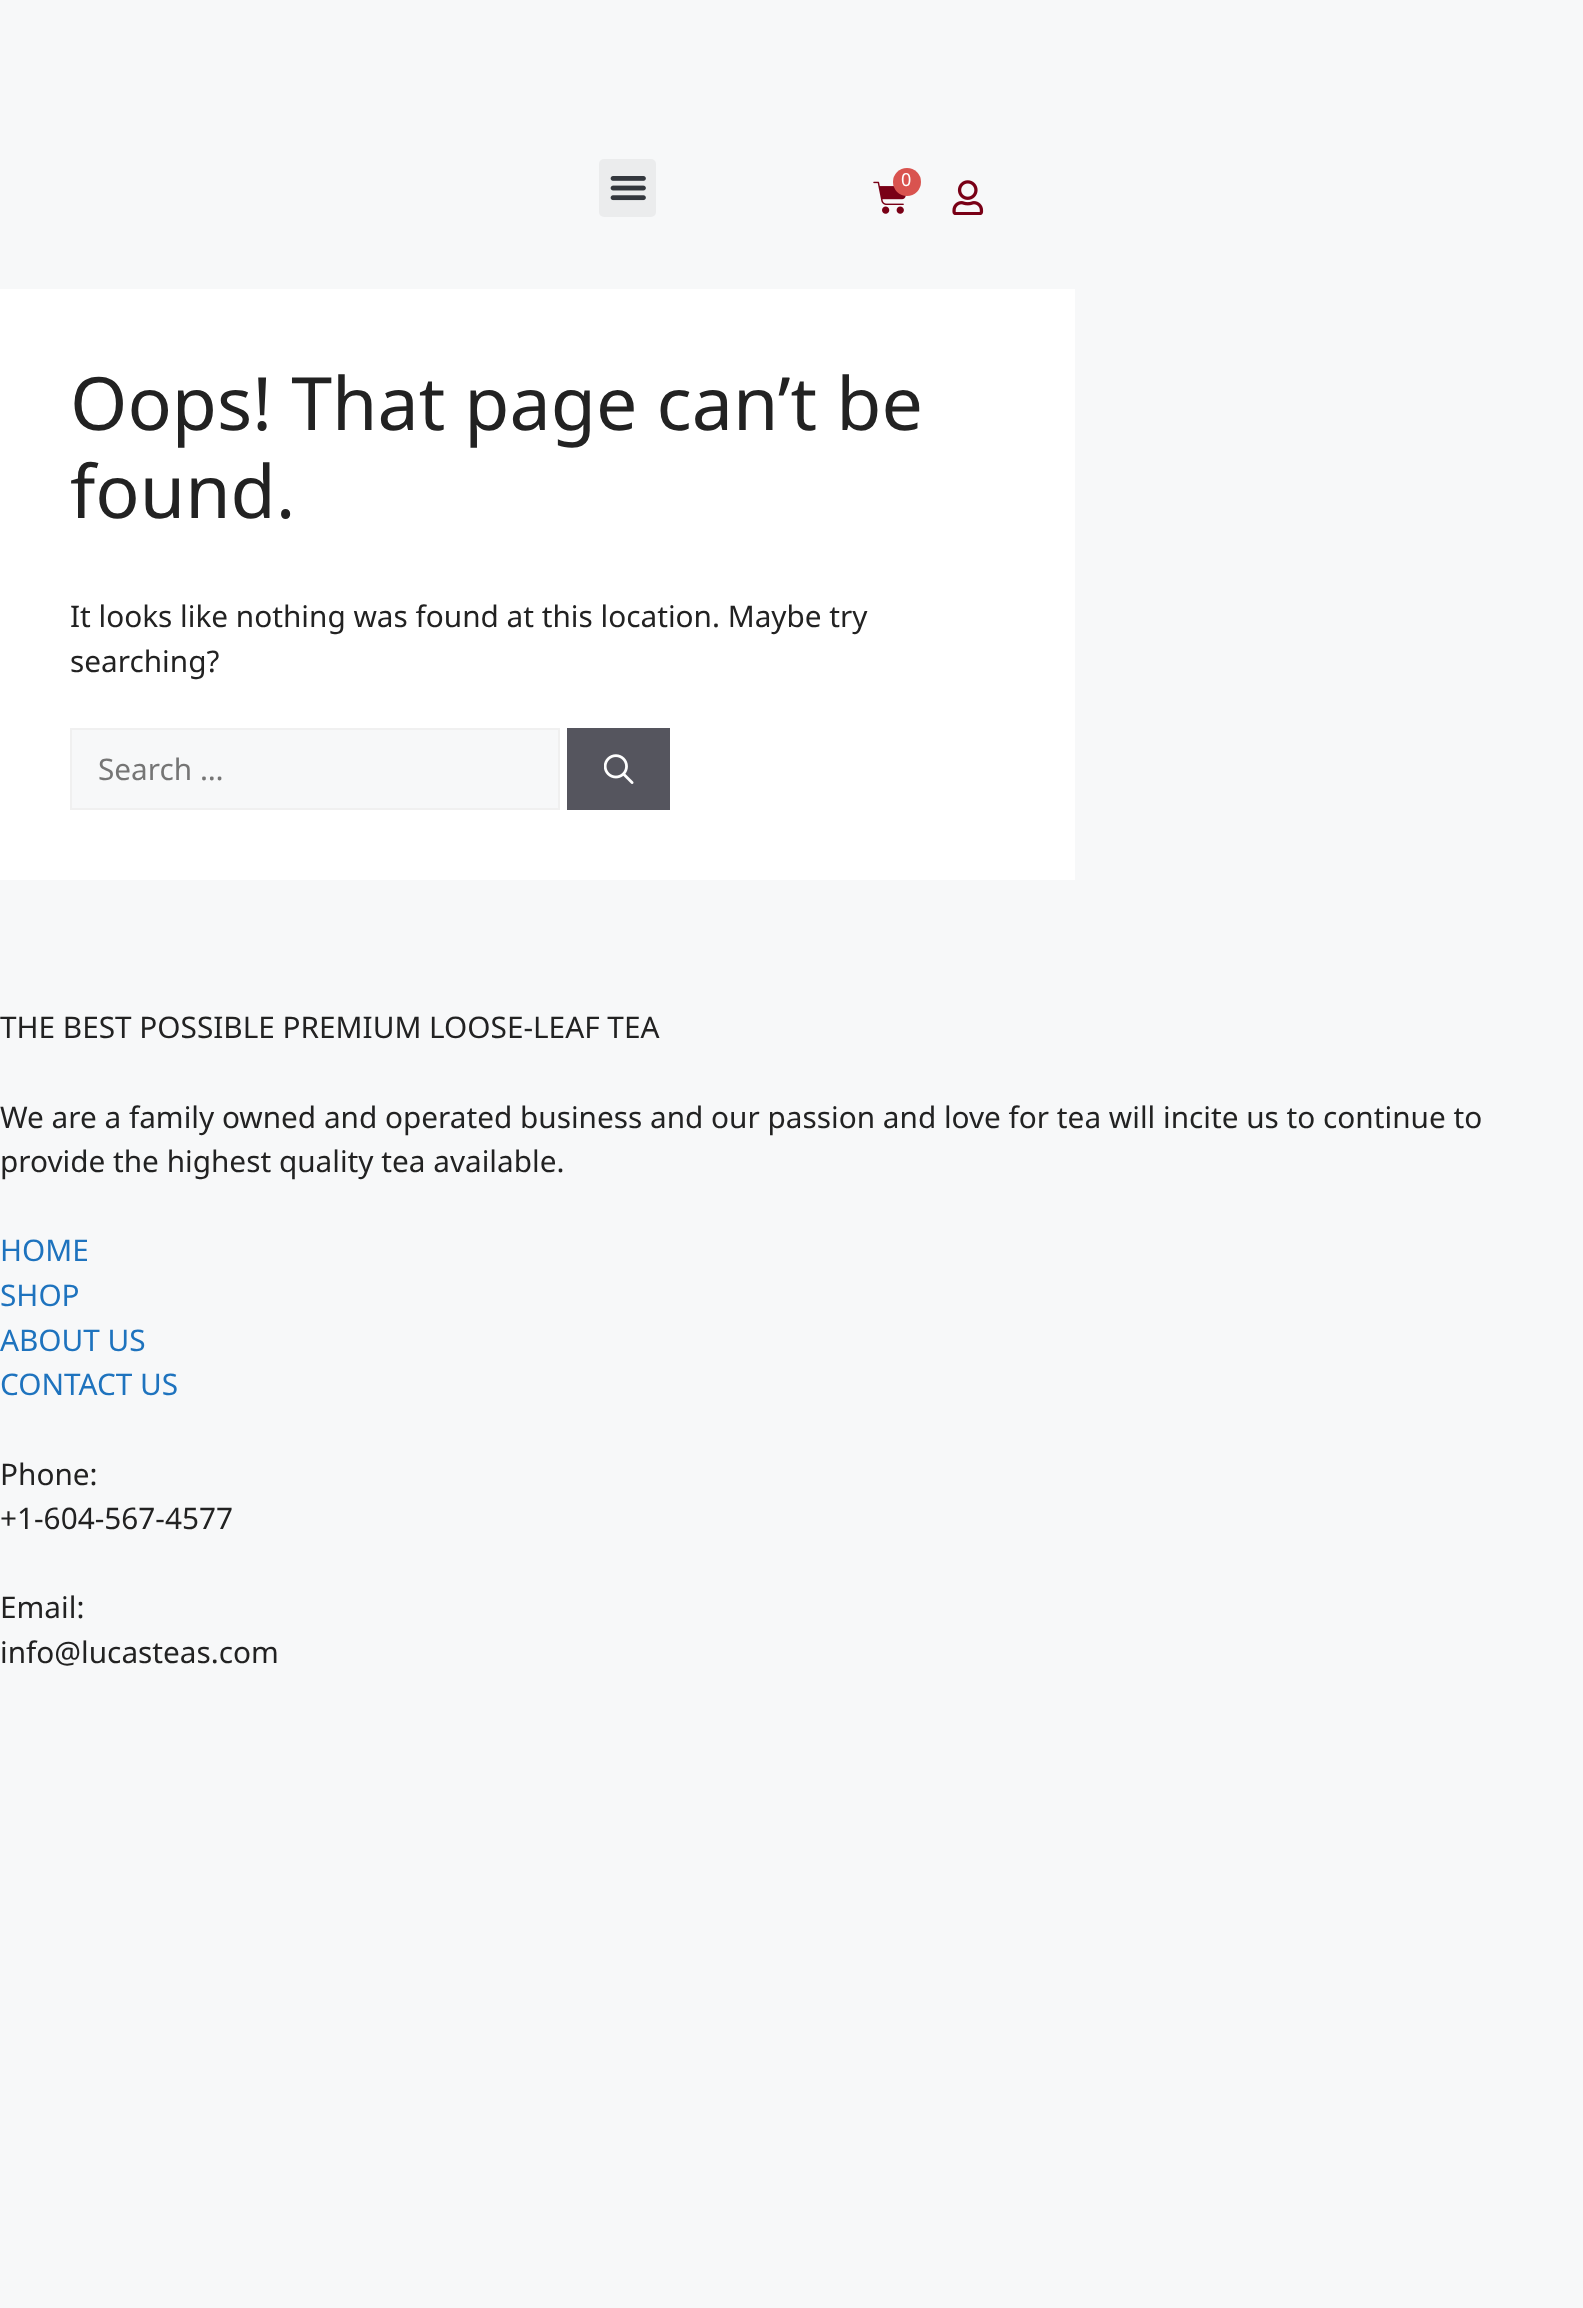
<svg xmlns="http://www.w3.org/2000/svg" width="1583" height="2308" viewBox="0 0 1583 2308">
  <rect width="100%" height="100%" fill="#f7f8f9"/>
  <rect x="599" y="159" width="57" height="58" rx="5" fill="#ebeced"/>
  <image x="610" y="176" width="36" height="25" href="img1.png"/>
  <image x="873" y="181" width="33" height="33" href="img2.png"/>
  <circle cx="907" cy="182" r="14" fill="#d9534f"/>
  <text x="901" y="186" font-family="Noto Sans" font-size="18" fill="#ffffff">0</text>
  <image x="952" y="180" width="32" height="35" href="img3.png"/>
  <rect x="0" y="289" width="1075" height="591" fill="#ffffff"/>
  <text x="70" y="430" font-family="Noto Sans" font-size="73.5" fill="#222222">Oops! That page can’t be</text>
  <text x="70" y="518" font-family="Noto Sans" font-size="73.5" fill="#222222">found.</text>
  <text x="70" y="627" font-family="Noto Sans" font-size="29.75" fill="#222222">It looks like nothing was found at this location. Maybe try</text>
  <text x="70" y="672" font-family="Noto Sans" font-size="29.75" fill="#222222">searching?</text>
  <rect x="71" y="729" width="488" height="80" fill="#f7f8f9" stroke="#f0f0f0" stroke-width="2"/>
  <text x="98" y="780" font-family="Noto Sans" font-size="29.75" fill="#757575">Search …</text>
  <rect x="567" y="728" width="103" height="82" fill="#55555e"/>
  <image x="604" y="754" width="30" height="30" href="img4.png"/>
  <text x="0" y="1038" font-family="Noto Sans" font-size="29.75" fill="#222222">THE BEST POSSIBLE PREMIUM LOOSE-LEAF TEA</text>
  <text x="0" y="1128" font-family="Noto Sans" font-size="29.75" fill="#222222">We are a family owned and operated business and our passion and love for tea will incite us to continue to</text>
  <text x="0" y="1172" font-family="Noto Sans" font-size="29.75" fill="#222222">provide the highest quality tea available.</text>
  <text x="0" y="1261" font-family="Noto Sans" font-size="29.75" fill="#1e73be">HOME</text>
  <text x="0" y="1306" font-family="Noto Sans" font-size="29.75" fill="#1e73be">SHOP</text>
  <text x="0" y="1351" font-family="Noto Sans" font-size="29.75" fill="#1e73be">ABOUT US</text>
  <text x="0" y="1395" font-family="Noto Sans" font-size="29.75" fill="#1e73be">CONTACT US</text>
  <text x="0" y="1485" font-family="Noto Sans" font-size="29.75" fill="#222222">Phone:</text>
  <text x="0" y="1529" font-family="Noto Sans" font-size="29.75" fill="#222222">+1-604-567-4577</text>
  <text x="0" y="1618" font-family="Noto Sans" font-size="29.75" fill="#222222">Email:</text>
  <text x="0" y="1663" font-family="Noto Sans" font-size="29.75" fill="#222222">info@lucasteas.com</text>
</svg>
